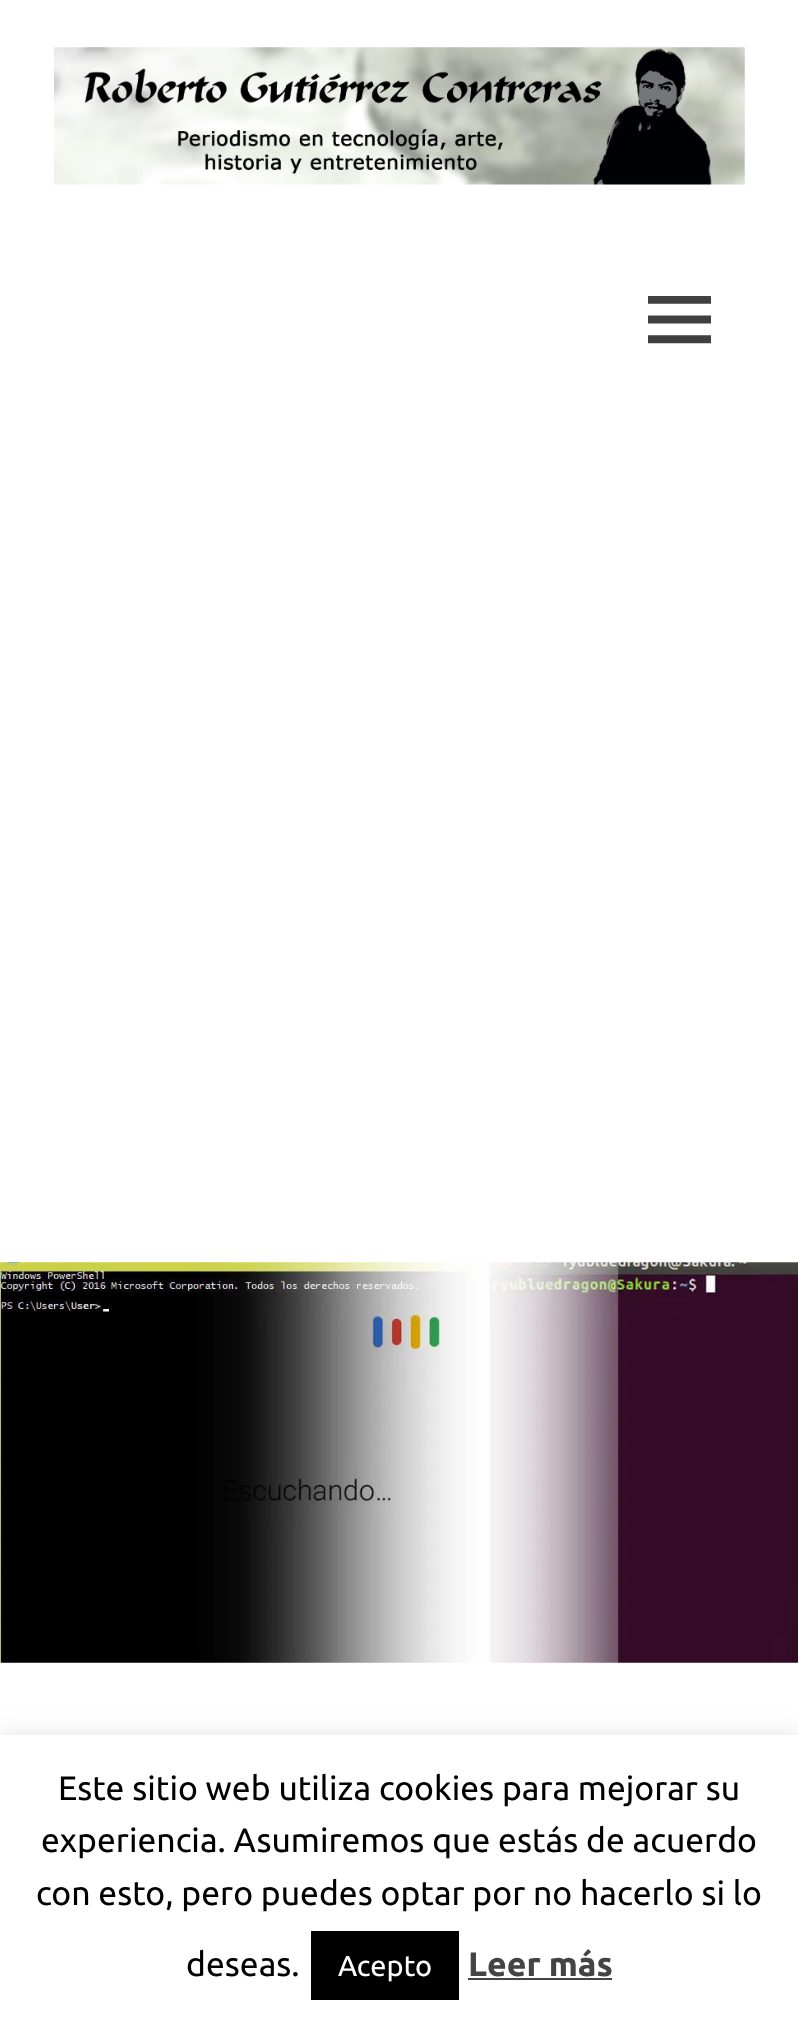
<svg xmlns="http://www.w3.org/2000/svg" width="798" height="2026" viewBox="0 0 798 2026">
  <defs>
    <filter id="blur1" x="-50%" y="-200%" width="200%" height="500%"><feGaussianBlur stdDeviation="11"/></filter>
  </defs>
  <rect width="100%" height="100%" fill="#ffffff"/>
  <image x="54" y="47" width="691" height="138" href="img1.png"/>
  <image x="648" y="296" width="63" height="48" href="img2.png"/>
  <image x="0" y="1262" width="798" height="401" href="img3.png"/>
  <rect x="0" y="1733" width="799" height="292" fill="#acabab" fill-opacity="0.3" filter="url(#blur1)"/>
  <rect x="0" y="1735" width="798" height="291" fill="#ffffff"/>
  <text x="58" y="1800" font-family="Ubuntu" font-size="33.75" fill="#000000">Este sitio web utiliza cookies para mejorar su</text>
  <text x="41" y="1852" font-family="Ubuntu" font-size="33.75" fill="#000000">experiencia. Asumiremos que estás de acuerdo</text>
  <text x="36" y="1905" font-family="Ubuntu" font-size="33.75" fill="#000000">con esto, pero puedes optar por no hacerlo si lo</text>
  <text x="186" y="1976" font-family="Ubuntu" font-size="33.75" fill="#000000">deseas.</text>
  <rect x="311" y="1931" width="148" height="69" fill="#000000"/>
  <text x="338" y="1976" font-family="Ubuntu" font-size="29" fill="#ffffff">Acepto</text>
  <text x="468" y="1976" font-family="Ubuntu" font-size="33.75" font-weight="bold" fill="#444444">Leer más</text>
  <rect x="468" y="1978" width="144" height="2" fill="#444444"/>
</svg>
